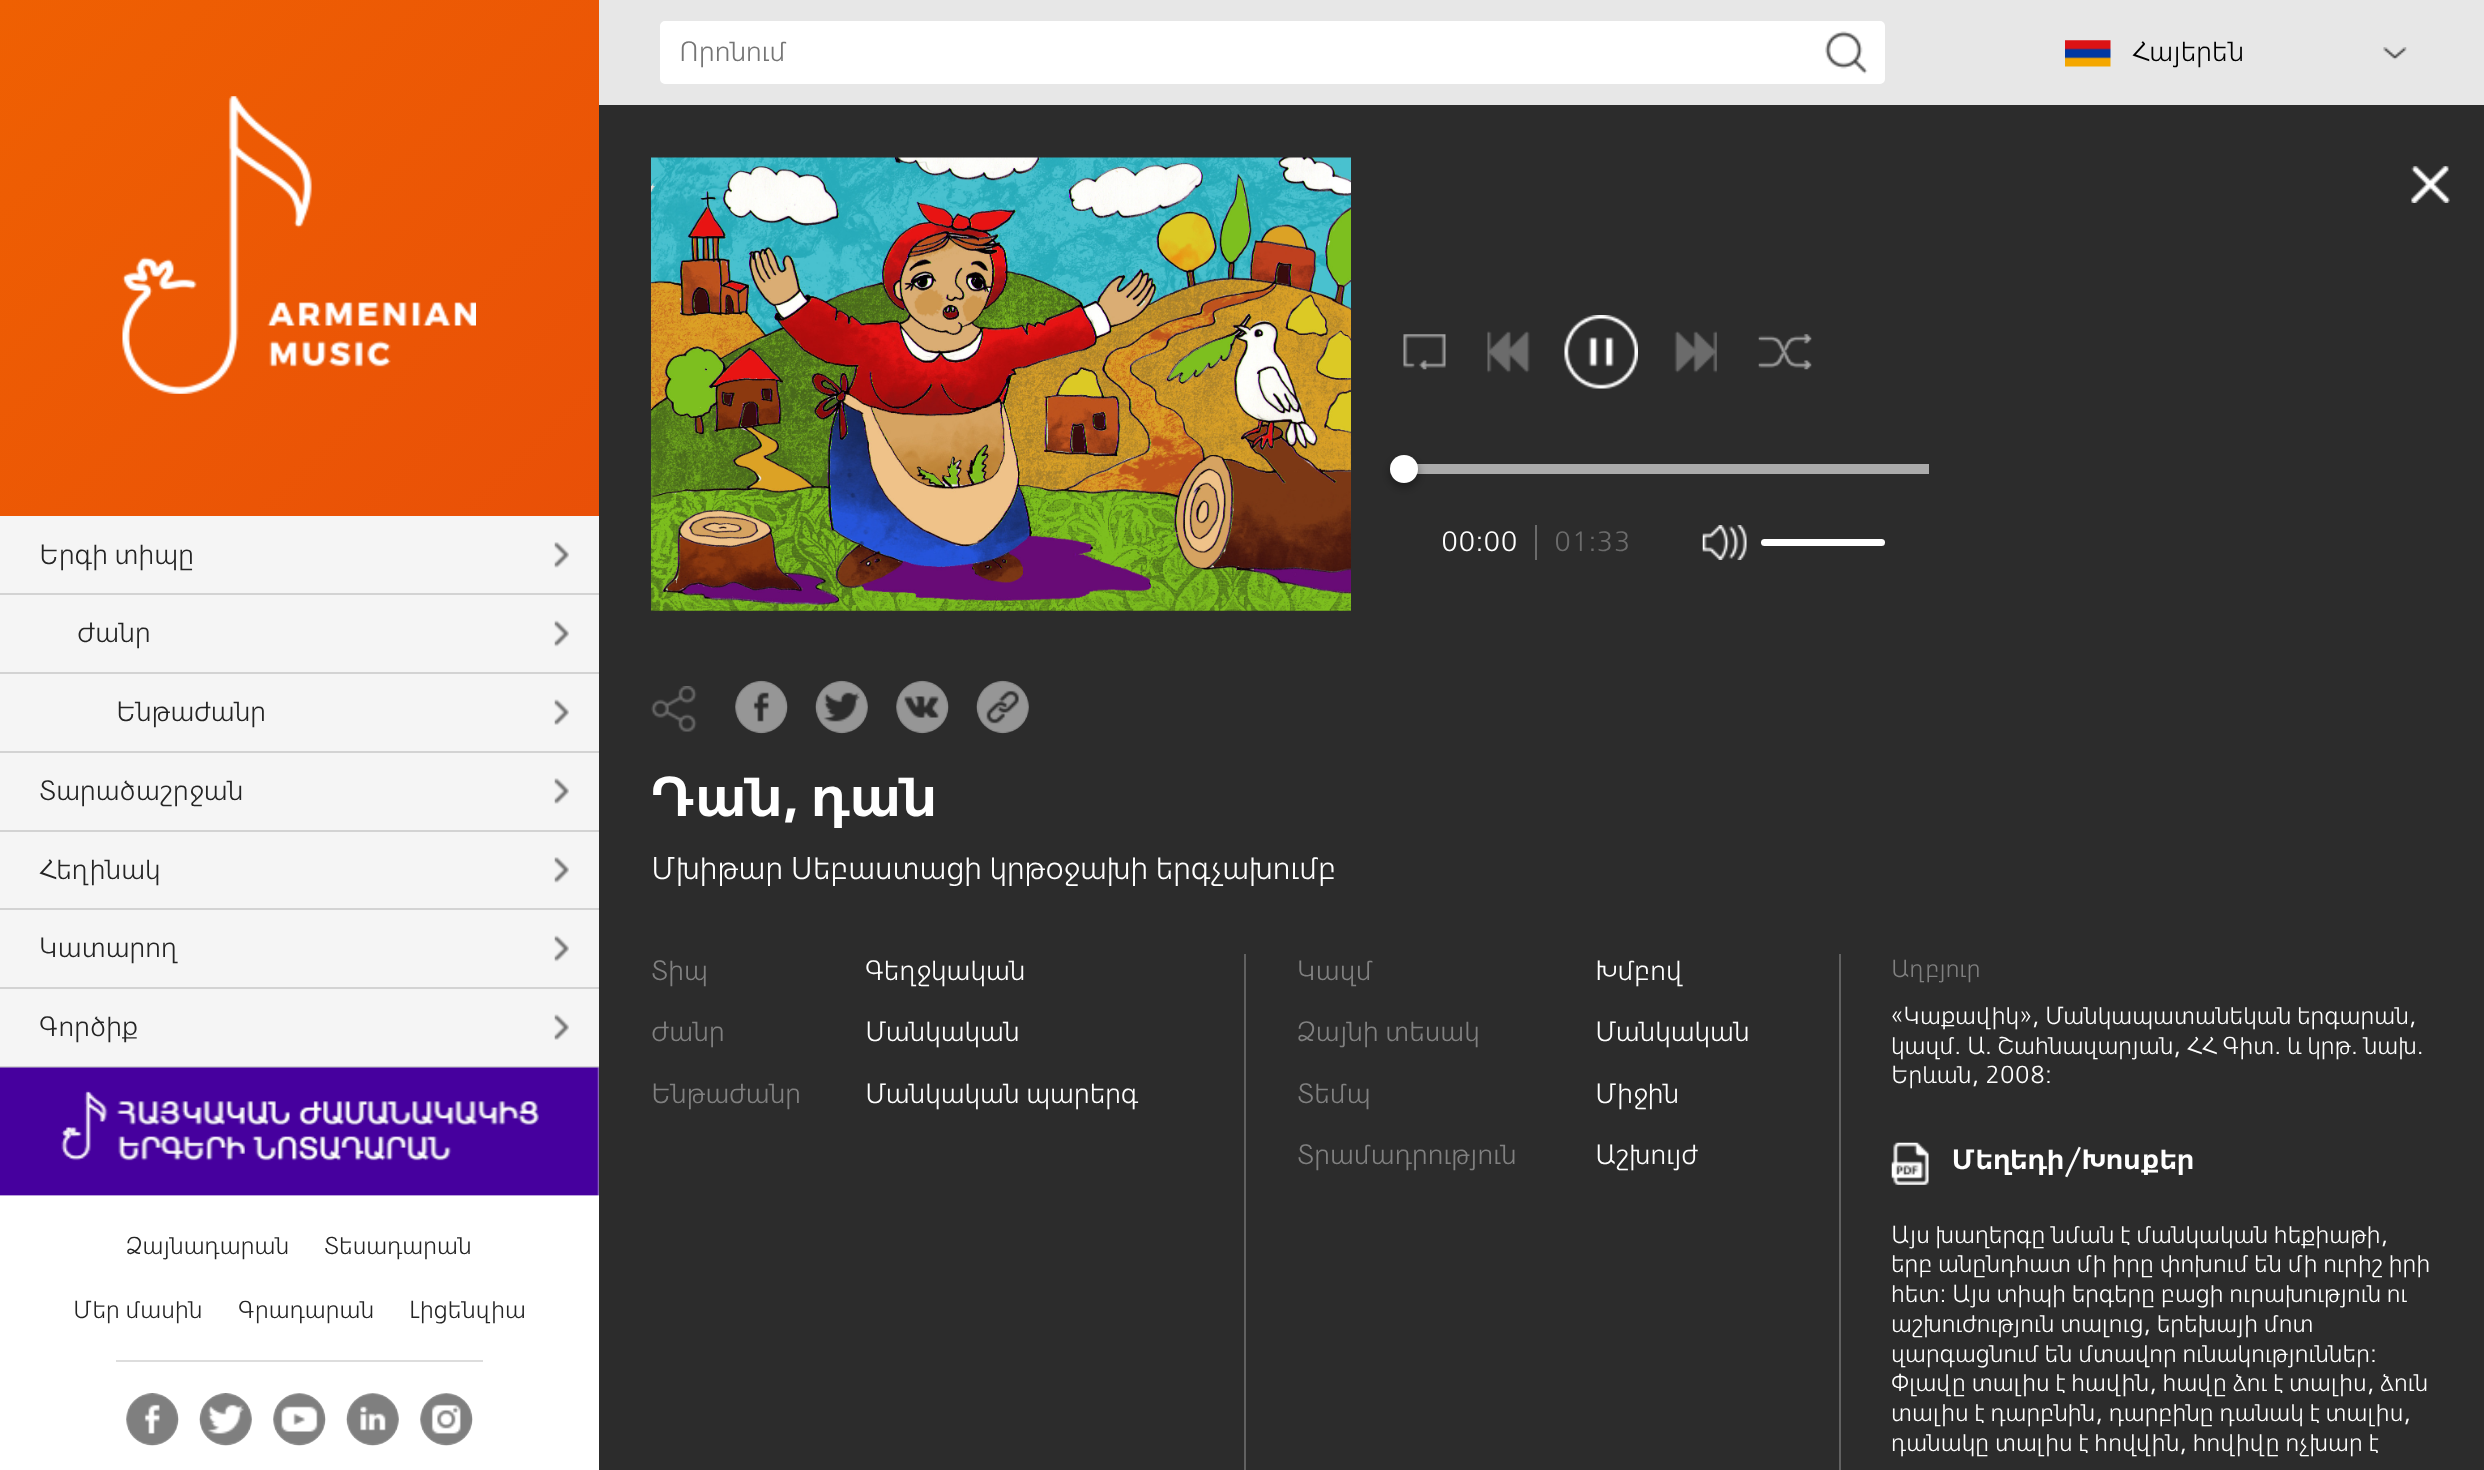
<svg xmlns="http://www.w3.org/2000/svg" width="2484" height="1470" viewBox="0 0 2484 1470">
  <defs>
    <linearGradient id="g1" gradientUnits="userSpaceOnUse" x1="816" y1="1252" x2="-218" y2="218"><stop offset="0" stop-color="#e4420c"/><stop offset="1" stop-color="#ef6002"/></linearGradient>
    <filter id="blur1" x="-50%" y="-200%" width="200%" height="500%"><feGaussianBlur stdDeviation="5"/></filter>
  </defs>
  <rect width="100%" height="100%" fill="#ffffff"/>
  <rect x="599" y="0" width="1885" height="105" fill="#e7e7e7"/>
  <rect x="661" y="22" width="1223" height="61" rx="4" fill="#ffffff" stroke="#ffffff" stroke-width="2"/>
  <text x="679" y="61" font-family="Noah" font-size="28" fill="#757575">Որոնում</text>
  <image x="1825" y="31" width="43" height="43" href="img1.png"/>
  <image x="2065" y="40" width="46" height="27" href="img2.png"/>
  <text x="2132" y="61" font-family="Noah" font-size="28" fill="#000000">Հայերեն</text>
  <image x="2383" y="47" width="24" height="13" href="img3.png"/>
  <rect x="0" y="0" width="599" height="516" fill="url(#g1)"/>
  <image x="122" y="96" width="354" height="298" href="img4.png"/>
  <rect x="0" y="516" width="599" height="679" fill="#f5f5f5"/>
  <rect x="0" y="593" width="599" height="2" fill="#d3d3d3"/>
  <text x="39" y="564" font-family="Noah" font-size="28" fill="#242424">Երգի տիպը</text>
  <image x="554" y="542" width="15" height="26" href="img5.png"/>
  <rect x="0" y="672" width="599" height="2" fill="#d3d3d3"/>
  <text x="77" y="642" font-family="Noah" font-size="28" fill="#242424">Ժանր</text>
  <image x="554" y="620" width="15" height="27" href="img6.png"/>
  <rect x="0" y="751" width="599" height="2" fill="#d3d3d3"/>
  <text x="116" y="721" font-family="Noah" font-size="28" fill="#242424">Ենթաժանր</text>
  <image x="554" y="699" width="15" height="26" href="img7.png"/>
  <rect x="0" y="830" width="599" height="2" fill="#d3d3d3"/>
  <text x="39" y="800" font-family="Noah" font-size="28" fill="#242424">Տարածաշրջան</text>
  <image x="554" y="778" width="15" height="26" href="img8.png"/>
  <rect x="0" y="908" width="599" height="2" fill="#d3d3d3"/>
  <text x="39" y="879" font-family="Noah" font-size="28" fill="#242424">Հեղինակ</text>
  <image x="554" y="857" width="15" height="26" href="img9.png"/>
  <rect x="0" y="987" width="599" height="2" fill="#d3d3d3"/>
  <text x="39" y="957" font-family="Noah" font-size="28" fill="#242424">Կատարող</text>
  <image x="554" y="935" width="15" height="27" href="img6.png"/>
  <rect x="0" y="1066" width="599" height="2" fill="#d3d3d3"/>
  <text x="39" y="1036" font-family="Noah" font-size="28" fill="#242424">Գործիք</text>
  <image x="554" y="1014" width="15" height="26" href="img7.png"/>
  <image x="0" y="1067" width="599" height="129" href="img10.png"/>
  <text x="126" y="1254" font-family="Noah" font-size="24.5" fill="#242424">Ձայնադարան</text>
  <text x="324" y="1254" font-family="Noah" font-size="24.5" fill="#242424">Տեսադարան</text>
  <text x="73" y="1318" font-family="Noah" font-size="24.5" fill="#242424">Մեր մասին</text>
  <text x="238" y="1318" font-family="Noah" font-size="24.5" fill="#242424">Գրադարան</text>
  <text x="409" y="1318" font-family="Noah" font-size="24.5" fill="#242424">Լիցենզիա</text>
  <rect x="116" y="1360" width="367" height="2" fill="#dddddd"/>
  <image x="126" y="1393" width="53" height="53" href="img11.png"/>
  <image x="199" y="1393" width="53" height="53" href="img12.png"/>
  <image x="273" y="1393" width="53" height="53" href="img13.png"/>
  <image x="346" y="1393" width="53" height="53" href="img14.png"/>
  <image x="420" y="1393" width="53" height="53" href="img15.png"/>
  <rect x="599" y="105" width="1885" height="1365" fill="#2c2c2c"/>
  <image x="2411" y="166" width="39" height="37" href="img16.png"/>
  <rect x="1417" y="464" width="512" height="10" fill="#ababab"/>
  <rect x="1390" y="459" width="28" height="28" rx="14" fill="#000000" fill-opacity="0.4" filter="url(#blur1)"/>
  <circle cx="1404" cy="469" r="14" fill="#ffffff"/>
  <image x="1403" y="334" width="43" height="36" href="img17.png"/>
  <image x="1487" y="331" width="43" height="42" href="img18.png"/>
  <image x="1564" y="315" width="74" height="74" href="img19.png"/>
  <image x="1674" y="331" width="43" height="42" href="img20.png"/>
  <image x="1758" y="334" width="54" height="36" href="img21.png"/>
  <text x="1441" y="551" font-family="Noah" font-size="28" fill="#ffffff">00:00</text>
  <rect x="1535" y="525" width="2" height="35" fill="#6b6b6b"/>
  <text x="1554" y="551" font-family="Noah" font-size="28" fill="#6b6b6b">01:33</text>
  <image x="1702" y="525" width="45" height="35" href="img22.png"/>
  <rect x="1761" y="539" width="124" height="7" rx="3.5" fill="#ffffff"/>
  <image x="651" y="157" width="700" height="454" href="img23.png"/>
  <image x="651" y="686" width="46" height="46" href="img24.png"/>
  <image x="735" y="680" width="53" height="54" href="img25.png"/>
  <image x="815" y="680" width="53" height="54" href="img26.png"/>
  <image x="896" y="680" width="53" height="54" href="img27.png"/>
  <image x="976" y="680" width="53" height="54" href="img28.png"/>
  <text x="651" y="816" font-family="Noah" font-size="56" font-weight="600" fill="#ffffff">Դան, դան</text>
  <text x="651" y="879" font-family="Noah" font-size="31.5" fill="#ffffff">Մխիթար Սեբաստացի կրթօջախի երգչախումբ</text>
  <text x="651" y="980" font-family="Noah" font-size="28" fill="#808080">Տիպ</text>
  <text x="865" y="980" font-family="Noah" font-size="28" fill="#ffffff">Գեղջկական</text>
  <text x="651" y="1041" font-family="Noah" font-size="28" fill="#808080">Ժանր</text>
  <text x="865" y="1041" font-family="Noah" font-size="28" fill="#ffffff">Մանկական</text>
  <text x="651" y="1103" font-family="Noah" font-size="28" fill="#808080">Ենթաժանր</text>
  <text x="865" y="1103" font-family="Noah" font-size="28" fill="#ffffff">Մանկական պարերգ</text>
  <rect x="1244" y="954" width="2" height="516" fill="#616161"/>
  <text x="1297" y="980" font-family="Noah" font-size="28" fill="#808080">Կազմ</text>
  <text x="1595" y="980" font-family="Noah" font-size="28" fill="#ffffff">Խմբով</text>
  <text x="1297" y="1041" font-family="Noah" font-size="28" fill="#808080">Ձայնի տեսակ</text>
  <text x="1595" y="1041" font-family="Noah" font-size="28" fill="#ffffff">Մանկական</text>
  <text x="1297" y="1103" font-family="Noah" font-size="28" fill="#808080">Տեմպ</text>
  <text x="1595" y="1103" font-family="Noah" font-size="28" fill="#ffffff">Միջին</text>
  <text x="1297" y="1164" font-family="Noah" font-size="28" fill="#808080">Տրամադրություն</text>
  <text x="1595" y="1164" font-family="Noah" font-size="28" fill="#ffffff">Աշխույժ</text>
  <rect x="1839" y="954" width="2" height="516" fill="#616161"/>
  <text x="1891" y="977" font-family="Noah" font-size="24.5" fill="#808080">Աղբյուր</text>
  <text x="1891" y="1024" font-family="Noah" font-size="24.5" fill="#ffffff">«Կաքավիկ», Մանկապատանեկան երգարան,</text>
  <text x="1891" y="1054" font-family="Noah" font-size="24.5" fill="#ffffff">կազմ. Ա. Շահնազարյան, ՀՀ Գիտ. և կրթ. նախ.</text>
  <text x="1891" y="1083" font-family="Noah" font-size="24.5" fill="#ffffff">Երևան, 2008:</text>
  <image x="1891" y="1142" width="38" height="43" href="img29.png"/>
  <text x="1952" y="1169" font-family="Noah" font-size="28" font-weight="600" fill="#ffffff">Մեղեդի/Խոսքեր</text>
  <text x="1891" y="1243" font-family="Noah" font-size="24.5" fill="#ffffff">Այս խաղերգը նման է մանկական հեքիաթի,</text>
  <text x="1891" y="1272" font-family="Noah" font-size="24.5" fill="#ffffff">երբ անընդհատ մի իրը փոխում են մի ուրիշ իրի</text>
  <text x="1891" y="1302" font-family="Noah" font-size="24.5" fill="#ffffff">հետ: Այս տիպի երգերը բացի ուրախություն ու</text>
  <text x="1891" y="1332" font-family="Noah" font-size="24.5" fill="#ffffff">աշխուժություն տալուց, երեխայի մոտ</text>
  <text x="1891" y="1362" font-family="Noah" font-size="24.5" fill="#ffffff">զարգացնում են մտավոր ունակություններ:</text>
  <text x="1891" y="1391" font-family="Noah" font-size="24.5" fill="#ffffff">Փլավը տալիս է հավին, հավը ձու է տալիս, ձուն</text>
  <text x="1891" y="1421" font-family="Noah" font-size="24.5" fill="#ffffff">տալիս է դարբնին, դարբինը դանակ է տալիս,</text>
  <text x="1891" y="1451" font-family="Noah" font-size="24.5" fill="#ffffff">դանակը տալիս է հովվին, հովիվը ոչխար է</text>
</svg>
